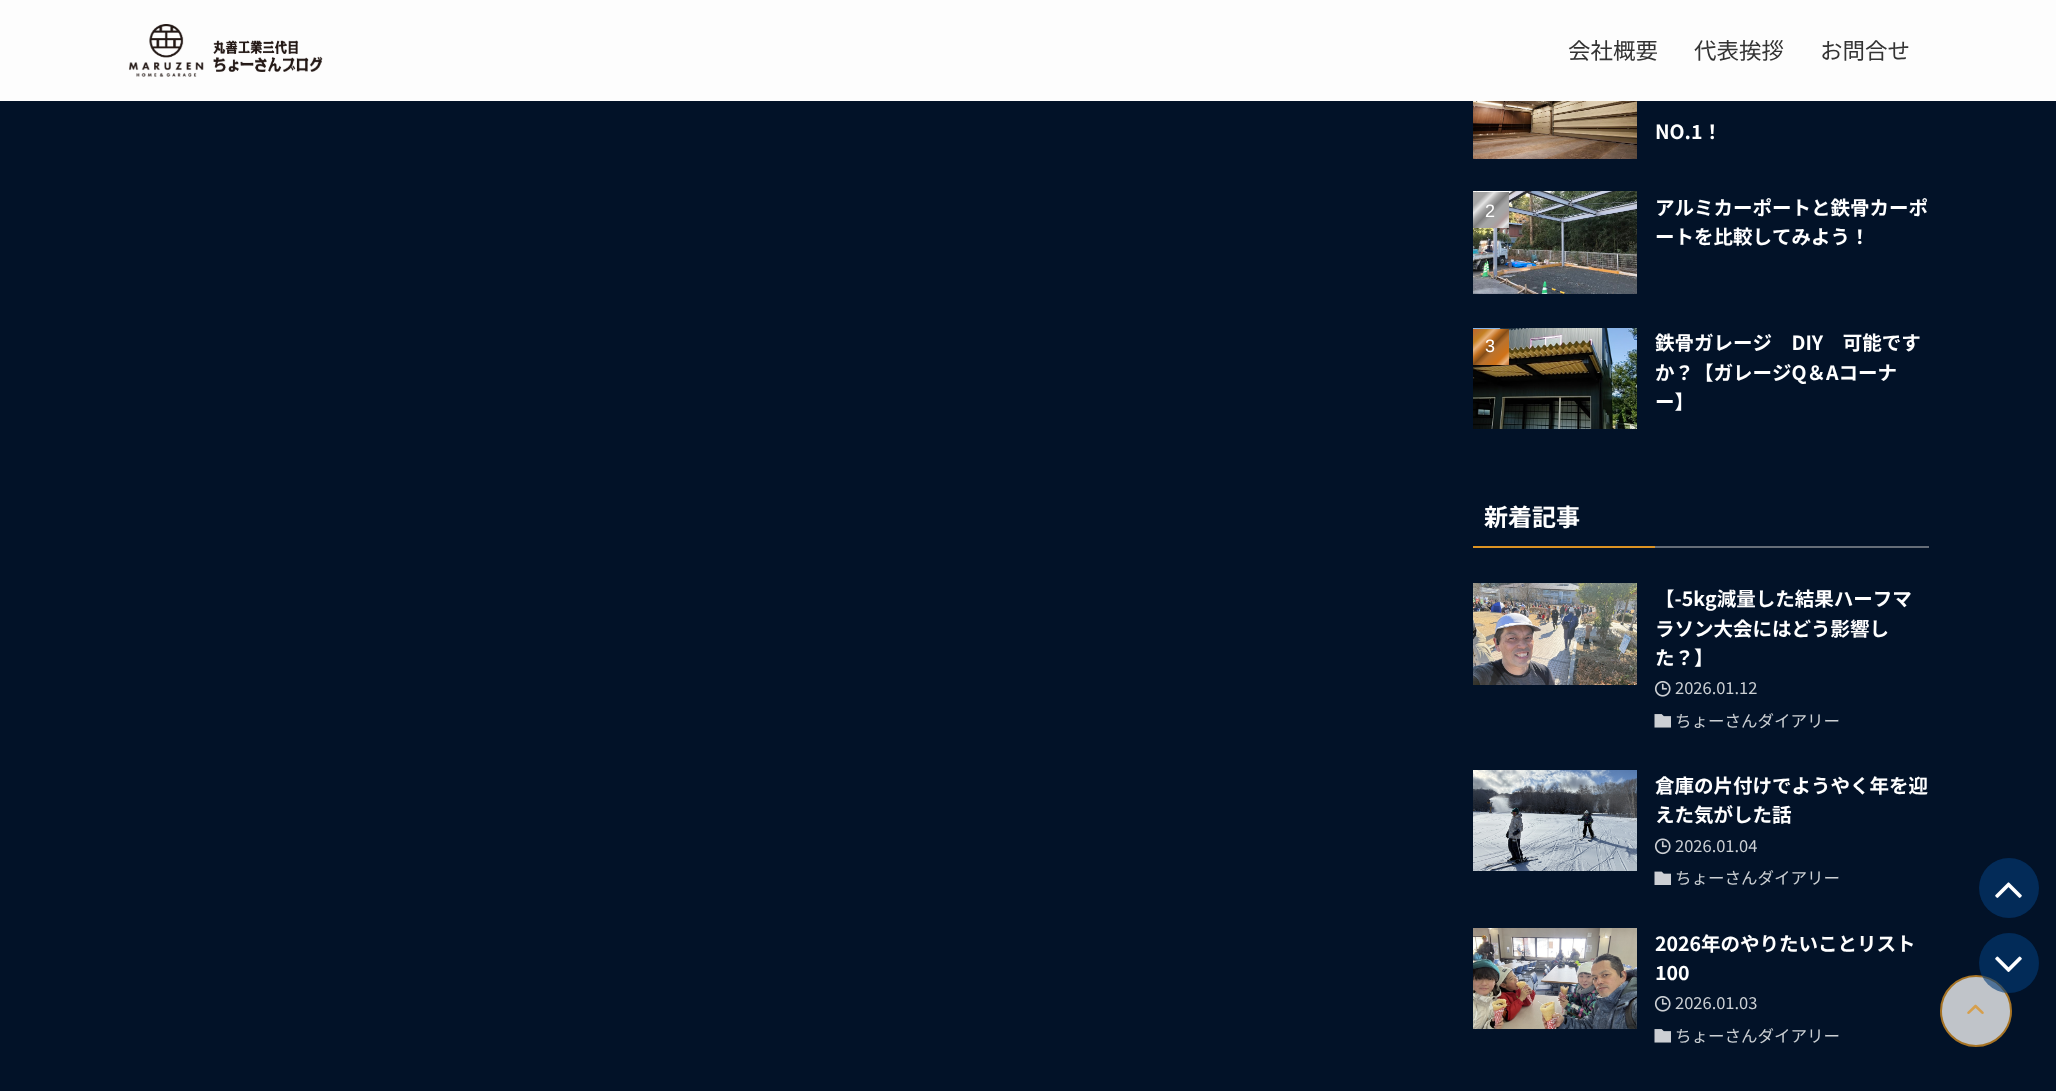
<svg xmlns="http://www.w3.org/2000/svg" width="2056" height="1091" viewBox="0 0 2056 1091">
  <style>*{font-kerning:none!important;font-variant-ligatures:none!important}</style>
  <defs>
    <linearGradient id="g1" gradientUnits="userSpaceOnUse" x1="1509" y1="228" x2="1473" y2="192"><stop offset="0" stop-color="#a5a5a5"/><stop offset="0.1" stop-color="#e5e5e5"/><stop offset="0.2" stop-color="#ae9c9c"/><stop offset="0.3" stop-color="#a5a5a5"/><stop offset="0.4" stop-color="#a5a5a5"/><stop offset="0.5" stop-color="#7f7f7f"/><stop offset="0.6" stop-color="#a5a5a5"/><stop offset="0.7" stop-color="#e5e5e5"/><stop offset="0.8" stop-color="#a5a5a5"/><stop offset="1" stop-color="#a5a5a5"/></linearGradient>
    <linearGradient id="g2" gradientUnits="userSpaceOnUse" x1="1509" y1="365" x2="1473" y2="329"><stop offset="0" stop-color="#c46522"/><stop offset="0.1" stop-color="#e8b27d"/><stop offset="0.2" stop-color="#d07217"/><stop offset="0.3" stop-color="#c47222"/><stop offset="0.4" stop-color="#b9722e"/><stop offset="0.5" stop-color="#834c17"/><stop offset="0.6" stop-color="#c47222"/><stop offset="0.7" stop-color="#e8b27d"/><stop offset="0.8" stop-color="#c48022"/><stop offset="0.9" stop-color="#b9722e"/><stop offset="1" stop-color="#c46522"/></linearGradient>
  </defs>
  <rect width="100%" height="100%" fill="#021228"/>
  <rect x="0" y="0" width="2056" height="101" fill="#fdfdfd"/>
  <image x="129" y="24" width="194" height="53" href="img1.png"/>
  <text x="1568" y="59" font-family="Noto Sans JP" font-size="22.5" fill="#333333">会社概要</text>
  <text x="1694" y="59" font-family="Noto Sans JP" font-size="22.5" fill="#333333">代表挨拶</text>
  <text x="1820" y="59" font-family="Noto Sans JP" font-size="22.5" fill="#333333">お問合せ</text>
  <image x="1473" y="101" width="164" height="58" href="img2.png"/>
  <text x="1655" y="139" font-family="Noto Sans JP" font-size="19.5" font-weight="bold" fill="#ffffff">NO.1！</text>
  <image x="1473" y="191" width="164" height="103" href="img3.png"/>
  <rect x="1473" y="192" width="36" height="36" fill="url(#g1)"/>
  <text x="1485" y="217" font-family="Liberation Sans" font-size="18" fill="#ffffff">2</text>
  <text x="1655" y="215" font-family="Noto Sans JP" font-size="19.5" font-weight="bold" fill="#ffffff">アルミカーポートと鉄骨カーポ</text>
  <text x="1655" y="244" font-family="Noto Sans JP" font-size="19.5" font-weight="bold" fill="#ffffff">ートを比較してみよう！</text>
  <image x="1473" y="328" width="164" height="101" href="img4.png"/>
  <rect x="1473" y="329" width="36" height="36" fill="url(#g2)"/>
  <text x="1485" y="352" font-family="Liberation Sans" font-size="18" fill="#ffffff">3</text>
  <text x="1655" y="350" font-family="Noto Sans JP" font-size="19.5" font-weight="bold" fill="#ffffff">鉄骨ガレージ　DIY　可能です</text>
  <text x="1655" y="380" font-family="Noto Sans JP" font-size="19.5" font-weight="bold" fill="#ffffff">か？【ガレージQ＆Aコーナ</text>
  <text x="1655" y="409" font-family="Noto Sans JP" font-size="19.5" font-weight="bold" fill="#ffffff">ー】</text>
  <text x="1484" y="526" font-family="Noto Sans JP" font-size="24" font-weight="bold" fill="#ffffff">新着記事</text>
  <rect x="1473" y="546" width="182" height="2" fill="#dd9323"/>
  <rect x="1655" y="546" width="274" height="2" fill="#656d78"/>
  <image x="1473" y="583" width="164" height="102" href="img5.png"/>
  <text x="1655" y="606" font-family="Noto Sans JP" font-size="19.5" font-weight="bold" fill="#ffffff">【-5kg減量した結果ハーフマ</text>
  <text x="1655" y="636" font-family="Noto Sans JP" font-size="19.5" font-weight="bold" fill="#ffffff">ラソン大会にはどう影響し</text>
  <text x="1655" y="665" font-family="Noto Sans JP" font-size="19.5" font-weight="bold" fill="#ffffff">た？】</text>
  <image x="1654" y="681" width="17" height="16" href="img6.png"/>
  <text x="1675" y="694" font-family="Noto Sans JP" font-size="16.5" fill="#ccd0d4">2026.01.12</text>
  <image x="1654" y="714" width="17" height="14" href="img7.png"/>
  <text x="1675" y="727" font-family="Noto Sans JP" font-size="16.5" fill="#ccd0d4">ちょーさんダイアリー</text>
  <image x="1473" y="770" width="164" height="101" href="img8.png"/>
  <text x="1655" y="793" font-family="Noto Sans JP" font-size="19.5" font-weight="bold" fill="#ffffff">倉庫の片付けでようやく年を迎</text>
  <text x="1655" y="822" font-family="Noto Sans JP" font-size="19.5" font-weight="bold" fill="#ffffff">えた気がした話</text>
  <image x="1654" y="838" width="17" height="17" href="img9.png"/>
  <text x="1675" y="852" font-family="Noto Sans JP" font-size="16.5" fill="#ccd0d4">2026.01.04</text>
  <image x="1654" y="871" width="17" height="14" href="img10.png"/>
  <text x="1675" y="884" font-family="Noto Sans JP" font-size="16.5" fill="#ccd0d4">ちょーさんダイアリー</text>
  <image x="1473" y="928" width="164" height="101" href="img11.png"/>
  <text x="1655" y="951" font-family="Noto Sans JP" font-size="19.5" font-weight="bold" fill="#ffffff">2026年のやりたいことリスト</text>
  <text x="1655" y="980" font-family="Noto Sans JP" font-size="19.5" font-weight="bold" fill="#ffffff">100</text>
  <image x="1654" y="996" width="17" height="16" href="img6.png"/>
  <text x="1675" y="1009" font-family="Noto Sans JP" font-size="16.5" fill="#ccd0d4">2026.01.03</text>
  <image x="1654" y="1029" width="17" height="14" href="img7.png"/>
  <text x="1675" y="1042" font-family="Noto Sans JP" font-size="16.5" fill="#ccd0d4">ちょーさんダイアリー</text>
  <circle cx="1976" cy="1011" r="35" fill="#c0c4c9" stroke="#a67324" stroke-width="2"/>
  <image x="1967" y="1004" width="17" height="10" href="img12.png"/>
  <circle cx="2009" cy="888" r="30" fill="#032b58"/>
  <image x="1995" y="882" width="27" height="16" href="img13.png"/>
  <circle cx="2009" cy="963" r="30" fill="#043c78" fill-opacity="0.6"/>
  <image x="1995" y="956" width="27" height="16" href="img14.png"/>
</svg>
